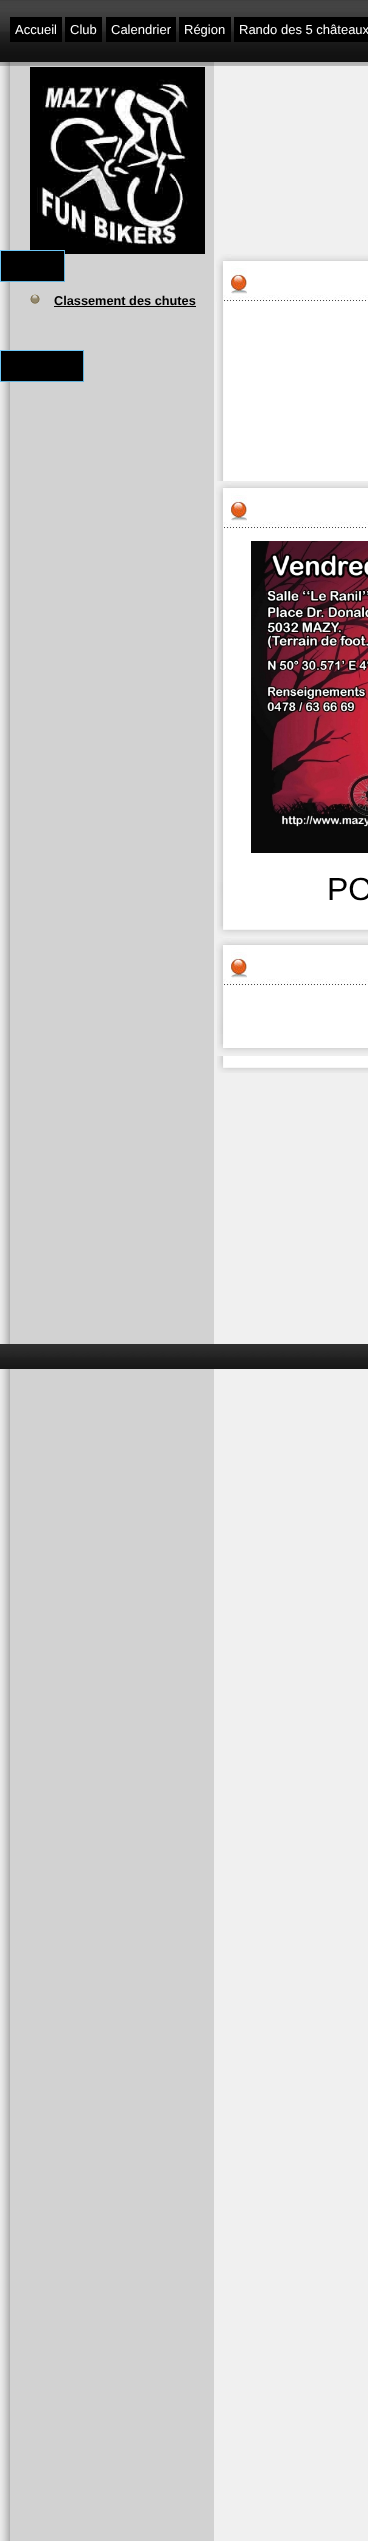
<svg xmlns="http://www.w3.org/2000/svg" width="368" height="2541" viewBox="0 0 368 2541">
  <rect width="100%" height="100%" fill="#ffffff"/>
  <image x="0" y="62" width="368" height="2479" href="img2.png"/>
  <image x="0" y="0" width="368" height="66" href="img1.png"/>
  <rect x="10" y="17" width="52" height="25" fill="#000000"/>
  <text x="15" y="34" font-family="Liberation Sans" font-size="13" fill="#ffffff">Accueil</text>
  <rect x="65" y="17" width="37" height="25" fill="#000000"/>
  <text x="70" y="34" font-family="Liberation Sans" font-size="13" fill="#ffffff">Club</text>
  <rect x="106" y="17" width="70" height="25" fill="#000000"/>
  <text x="111" y="34" font-family="Liberation Sans" font-size="13" fill="#ffffff">Calendrier</text>
  <rect x="179" y="17" width="52" height="25" fill="#000000"/>
  <text x="184" y="34" font-family="Liberation Sans" font-size="13" fill="#ffffff">Région</text>
  <rect x="234" y="17" width="134" height="25" fill="#000000"/>
  <text x="239" y="34" font-family="Liberation Sans" font-size="13" fill="#ffffff">Rando des 5 châteaux</text>
  <image x="30" y="67" width="175" height="187" href="img3.png"/>
  <rect x="1" y="251" width="63" height="30" fill="#000000"/>
  <rect x="0" y="250" width="65" height="1" fill="#6dc7f7"/>
  <rect x="64" y="250" width="1" height="32" fill="#61b3de"/>
  <rect x="0" y="281" width="65" height="1" fill="#61b3de"/>
  <rect x="0" y="250" width="1" height="32" fill="#6dc7f7"/>
  <image x="30" y="294" width="10" height="10" href="img4.png"/>
  <text x="54" y="305" font-family="Liberation Sans" font-size="12.75" font-weight="bold" fill="#000000">Classement des chutes</text>
  <rect x="54" y="306" width="142" height="1" fill="#000000"/>
  <rect x="1" y="351" width="82" height="30" fill="#000000"/>
  <rect x="0" y="350" width="84" height="1" fill="#6dc7f7"/>
  <rect x="83" y="350" width="1" height="32" fill="#61b3de"/>
  <rect x="0" y="381" width="84" height="1" fill="#61b3de"/>
  <rect x="0" y="350" width="1" height="32" fill="#6dc7f7"/>
  <image x="217" y="302" width="151" height="771" href="img5.png"/>
  <image x="216" y="254" width="152" height="48" href="img6.png"/>
  <image x="217" y="926" width="151" height="12" href="img7.png"/>
  <image x="216" y="481" width="152" height="48" href="img6.png"/>
  <image x="251" y="541" width="117" height="312" href="img8.png"/>
  <text x="327" y="900" font-family="Liberation Sans" font-size="32" fill="#000000">PO</text>
  <image x="217" y="1044" width="151" height="12" href="img9.png"/>
  <image x="216" y="938" width="152" height="48" href="img6.png"/>
  <image x="0" y="1344" width="368" height="25" href="img10.png"/>
</svg>
